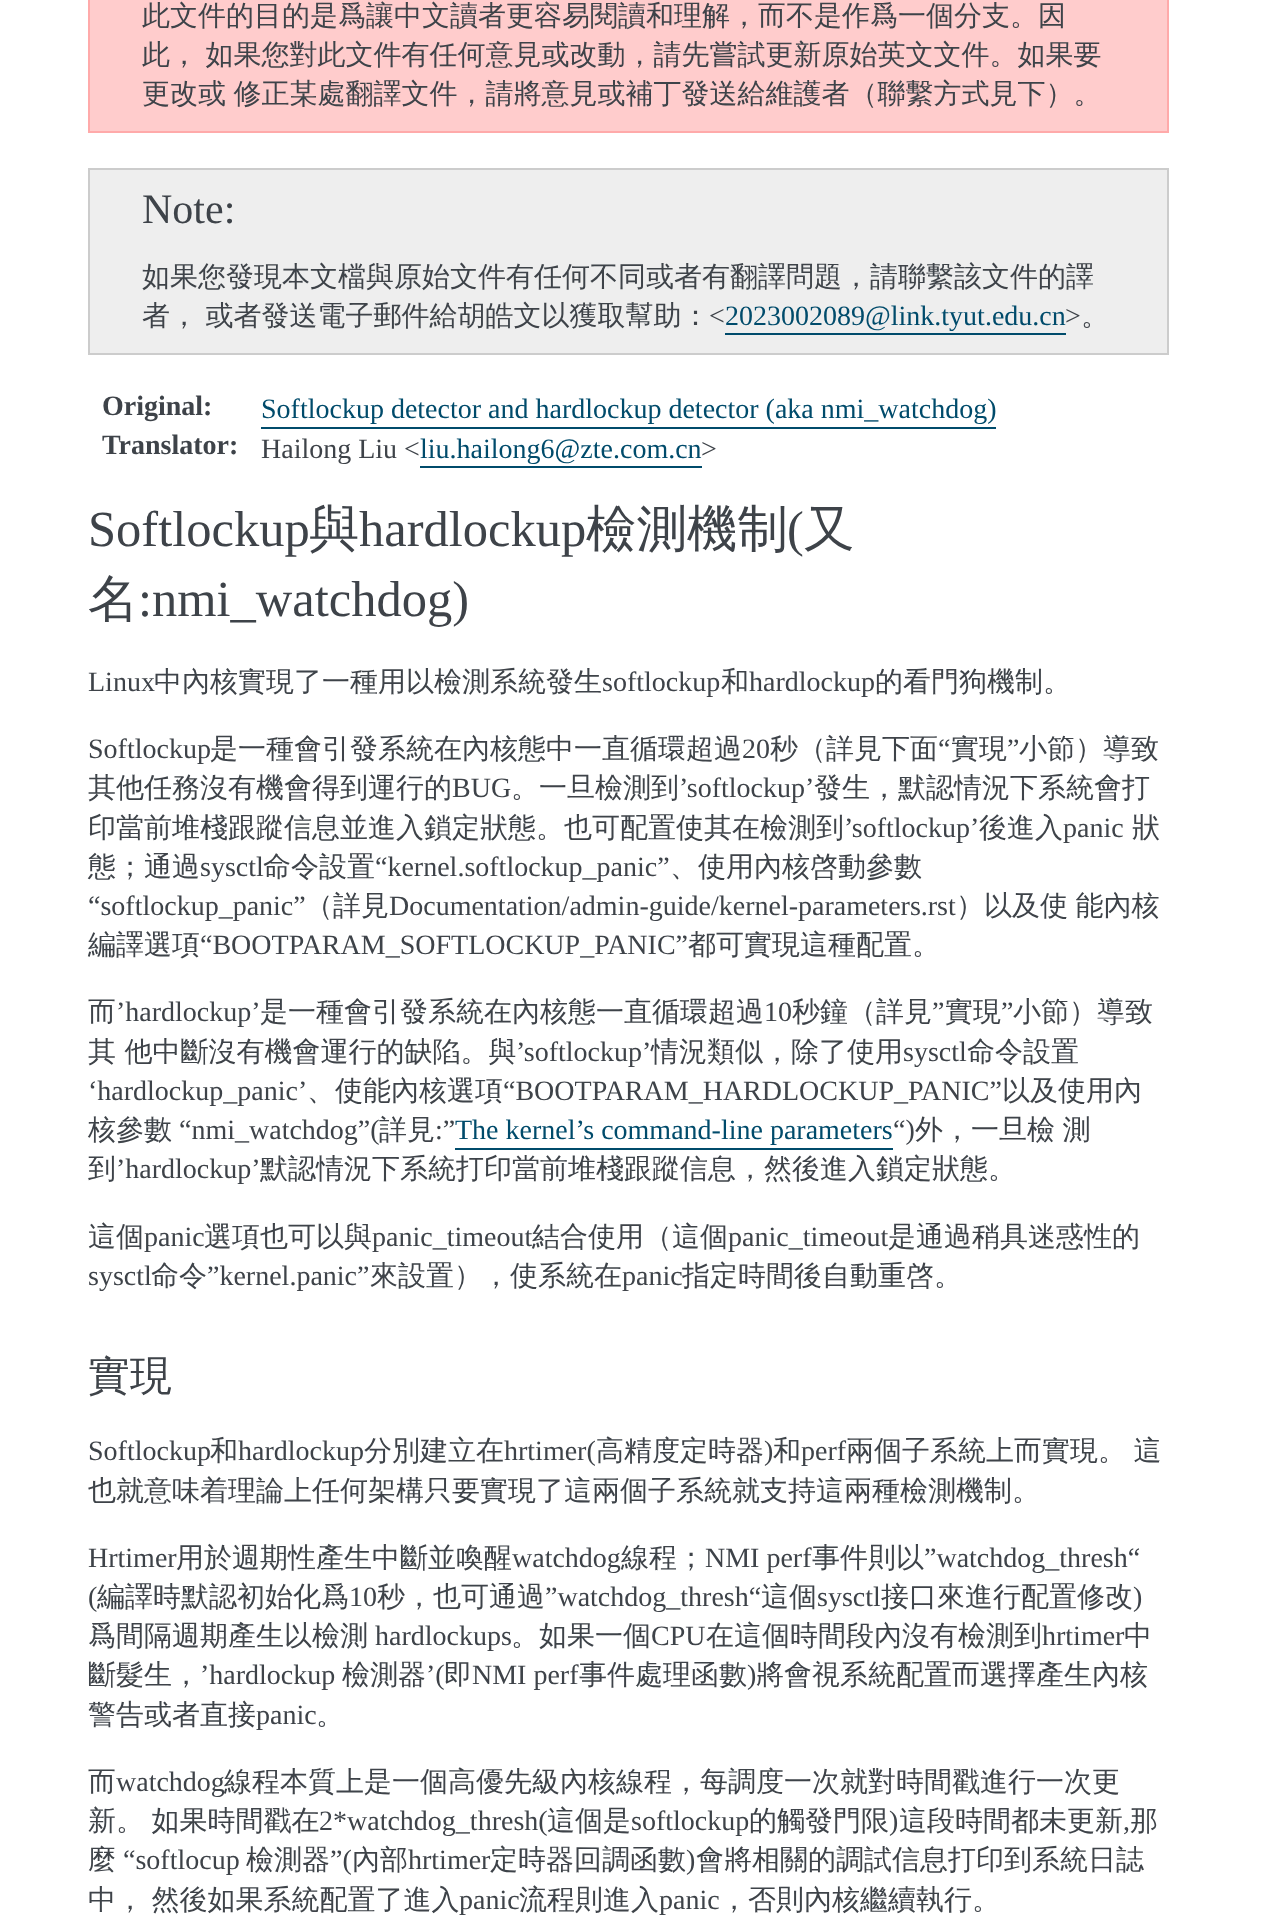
<svg xmlns="http://www.w3.org/2000/svg" width="1264" height="1925" viewBox="0 0 1264 1925">
  <rect width="100%" height="100%" fill="#ffffff"/>
  <rect x="89" y="-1" width="1079" height="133" fill="#ffcccc" stroke="#ffaaaa" stroke-width="2"/>
  <text x="142" y="25" font-family="WenQuanYi Zen Hei" font-size="28" font-weight="500" fill="#3e4349">此文件的目的是爲讓中文讀者更容易閱讀和理解，而不是作爲一個分支。因</text>
  <text x="142" y="64" word-spacing="-1" font-family="WenQuanYi Zen Hei" font-size="28" font-weight="500" fill="#3e4349">此， 如果您對此文件有任何意見或改動，請先嘗試更新原始英文文件。如果要</text>
  <text x="142" y="103" word-spacing="-1" font-family="WenQuanYi Zen Hei" font-size="28" font-weight="500" fill="#3e4349">更改或 修正某處翻譯文件，請將意見或補丁發送給維護者（聯繫方式見下）。</text>
  <rect x="89" y="169" width="1079" height="185" fill="#eeeeee" stroke="#cccccc" stroke-width="2"/>
  <text x="142" y="223" font-family="Liberation Serif" font-size="42" fill="#3e4349">Note:</text>
  <text x="142" y="286" font-family="WenQuanYi Zen Hei" font-size="28" font-weight="500" fill="#3e4349">如果您發現本文檔與原始文件有任何不同或者有翻譯問題，請聯繫該文件的譯</text>
  <text x="142" y="325" word-spacing="-1" font-family="WenQuanYi Zen Hei" font-size="28" font-weight="500" fill="#3e4349">者， 或者發送電子郵件給胡皓文以獲取幫助：</text>
  <text x="709" y="325" font-family="Liberation Serif" font-size="28" fill="#3e4349">&lt;</text>
  <text x="725" y="325" font-family="Liberation Serif" font-size="28" fill="#004b6b">2023002089@link.tyut.edu.cn</text>
  <rect x="725" y="333" width="341" height="2" fill="#004b6b"/>
  <text x="1065" y="325" font-family="Liberation Serif" font-size="28" fill="#3e4349">&gt;</text>
  <text x="1081" y="325" font-family="WenQuanYi Zen Hei" font-size="28" font-weight="500" fill="#3e4349">。</text>
  <text x="102" y="415" font-family="Liberation Serif" font-size="28" font-weight="bold" fill="#3e4349">Original:</text>
  <text x="261" y="418" font-family="Liberation Serif" font-size="28" fill="#004b6b">Softlockup detector and hardlockup detector (aka nmi_watchdog)</text>
  <rect x="261" y="427" width="735" height="2" fill="#004b6b"/>
  <text x="102" y="454" font-family="Liberation Serif" font-size="28" font-weight="bold" fill="#3e4349">Translator:</text>
  <text x="261" y="458" font-family="Liberation Serif" font-size="28" fill="#3e4349">Hailong Liu &lt;</text>
  <text x="420" y="458" font-family="Liberation Serif" font-size="28" fill="#004b6b">liu.hailong6@zte.com.cn</text>
  <rect x="420" y="466" width="282" height="2" fill="#004b6b"/>
  <text x="701" y="458" font-family="Liberation Serif" font-size="28" fill="#3e4349">&gt;</text>
  <text x="88" y="546" font-family="Liberation Serif" font-size="50.5" fill="#3e4349">Softlockup</text>
  <text x="309" y="546" font-family="WenQuanYi Zen Hei" font-size="50.5" font-weight="500" fill="#3e4349">與</text>
  <text x="359" y="546" font-family="Liberation Serif" font-size="50.5" fill="#3e4349">hardlockup</text>
  <text x="586" y="546" font-family="WenQuanYi Zen Hei" font-size="50.5" font-weight="500" fill="#3e4349">檢測機制</text>
  <text x="787" y="546" font-family="Liberation Serif" font-size="50.5" fill="#3e4349">(</text>
  <text x="804" y="546" font-family="WenQuanYi Zen Hei" font-size="50.5" font-weight="500" fill="#3e4349">又</text>
  <text x="88" y="616" font-family="WenQuanYi Zen Hei" font-size="50.5" font-weight="500" fill="#3e4349">名</text>
  <text x="138" y="616" font-family="Liberation Serif" font-size="50.5" fill="#3e4349">:nmi_watchdog)</text>
  <text x="88" y="691" font-family="Liberation Serif" font-size="28" fill="#3e4349">Linux</text>
  <text x="154" y="691" font-family="WenQuanYi Zen Hei" font-size="28" font-weight="500" fill="#3e4349">中內核實現了一種用以檢測系統發生</text>
  <text x="602" y="691" font-family="Liberation Serif" font-size="28" fill="#3e4349">softlockup</text>
  <text x="721" y="691" font-family="WenQuanYi Zen Hei" font-size="28" font-weight="500" fill="#3e4349">和</text>
  <text x="749" y="691" font-family="Liberation Serif" font-size="28" fill="#3e4349">hardlockup</text>
  <text x="875" y="691" font-family="WenQuanYi Zen Hei" font-size="28" font-weight="500" fill="#3e4349">的看門狗機制。</text>
  <text x="88" y="758" font-family="Liberation Serif" font-size="28" fill="#3e4349">Softlockup</text>
  <text x="210" y="758" font-family="WenQuanYi Zen Hei" font-size="28" font-weight="500" fill="#3e4349">是一種會引發系統在內核態中一直循環超過</text>
  <text x="742" y="758" font-family="Liberation Serif" font-size="28" fill="#3e4349">20</text>
  <text x="770" y="758" font-family="WenQuanYi Zen Hei" font-size="28" font-weight="500" fill="#3e4349">秒（詳見下面</text>
  <text x="938" y="758" font-family="Liberation Serif" font-size="28" fill="#3e4349">“</text>
  <text x="951" y="758" font-family="WenQuanYi Zen Hei" font-size="28" font-weight="500" fill="#3e4349">實現</text>
  <text x="1007" y="758" font-family="Liberation Serif" font-size="28" fill="#3e4349">”</text>
  <text x="1019" y="758" font-family="WenQuanYi Zen Hei" font-size="28" font-weight="500" fill="#3e4349">小節）導致</text>
  <text x="88" y="797" font-family="WenQuanYi Zen Hei" font-size="28" font-weight="500" fill="#3e4349">其他任務沒有機會得到運行的</text>
  <text x="452" y="797" font-family="Liberation Serif" font-size="28" fill="#3e4349">BUG</text>
  <text x="511" y="797" font-family="WenQuanYi Zen Hei" font-size="28" font-weight="500" fill="#3e4349">。一旦檢測到</text>
  <text x="679" y="797" font-family="Liberation Serif" font-size="28" fill="#3e4349">’softlockup’</text>
  <text x="814" y="797" font-family="WenQuanYi Zen Hei" font-size="28" font-weight="500" fill="#3e4349">發生，默認情況下系統會打</text>
  <text x="88" y="837" font-family="WenQuanYi Zen Hei" font-size="28" font-weight="500" fill="#3e4349">印當前堆棧跟蹤信息並進入鎖定狀態。也可配置使其在檢測到</text>
  <text x="844" y="837" font-family="Liberation Serif" font-size="28" fill="#3e4349">’softlockup’</text>
  <text x="979" y="837" font-family="WenQuanYi Zen Hei" font-size="28" font-weight="500" fill="#3e4349">後進入</text>
  <text x="1063" y="837" font-family="Liberation Serif" font-size="28" fill="#3e4349">panic</text>
  <text x="1132" y="837" font-family="WenQuanYi Zen Hei" font-size="28" font-weight="500" fill="#3e4349">狀</text>
  <text x="88" y="876" font-family="WenQuanYi Zen Hei" font-size="28" font-weight="500" fill="#3e4349">態；通過</text>
  <text x="200" y="876" font-family="Liberation Serif" font-size="28" fill="#3e4349">sysctl</text>
  <text x="263" y="876" font-family="WenQuanYi Zen Hei" font-size="28" font-weight="500" fill="#3e4349">命令設置</text>
  <text x="375" y="876" font-family="Liberation Serif" font-size="28" fill="#3e4349">“kernel.softlockup_panic”</text>
  <text x="670" y="876" font-family="WenQuanYi Zen Hei" font-size="28" font-weight="500" fill="#3e4349">、使用內核啓動參數</text>
  <text x="88" y="915" font-family="Liberation Serif" font-size="28" fill="#3e4349">“softlockup_panic”</text>
  <text x="305" y="915" font-family="WenQuanYi Zen Hei" font-size="28" font-weight="500" fill="#3e4349">（詳見</text>
  <text x="389" y="915" font-family="Liberation Serif" font-size="28" fill="#3e4349">Documentation/admin-guide/kernel-parameters.rst</text>
  <text x="956" y="915" word-spacing="-1" font-family="WenQuanYi Zen Hei" font-size="28" font-weight="500" fill="#3e4349">）以及使 能內核</text>
  <text x="88" y="954" font-family="WenQuanYi Zen Hei" font-size="28" font-weight="500" fill="#3e4349">編譯選項</text>
  <text x="200" y="954" font-family="Liberation Serif" font-size="28" fill="#3e4349">“BOOTPARAM_SOFTLOCKUP_PANIC”</text>
  <text x="688" y="954" font-family="WenQuanYi Zen Hei" font-size="28" font-weight="500" fill="#3e4349">都可實現這種配置。</text>
  <text x="88" y="1021" font-family="WenQuanYi Zen Hei" font-size="28" font-weight="500" fill="#3e4349">而</text>
  <text x="116" y="1021" font-family="Liberation Serif" font-size="28" fill="#3e4349">’hardlockup’</text>
  <text x="260" y="1021" font-family="WenQuanYi Zen Hei" font-size="28" font-weight="500" fill="#3e4349">是一種會引發系統在內核態一直循環超過</text>
  <text x="764" y="1021" font-family="Liberation Serif" font-size="28" fill="#3e4349">10</text>
  <text x="792" y="1021" font-family="WenQuanYi Zen Hei" font-size="28" font-weight="500" fill="#3e4349">秒鐘（詳見</text>
  <text x="932" y="1021" font-family="Liberation Serif" font-size="28" fill="#3e4349">”</text>
  <text x="945" y="1021" font-family="WenQuanYi Zen Hei" font-size="28" font-weight="500" fill="#3e4349">實現</text>
  <text x="1001" y="1021" font-family="Liberation Serif" font-size="28" fill="#3e4349">”</text>
  <text x="1013" y="1021" font-family="WenQuanYi Zen Hei" font-size="28" font-weight="500" fill="#3e4349">小節）導致</text>
  <text x="88" y="1061" font-family="WenQuanYi Zen Hei" font-size="28" font-weight="500" fill="#3e4349">其 他中斷沒有機會運行的缺陷。與</text>
  <text x="516" y="1061" font-family="Liberation Serif" font-size="28" fill="#3e4349">’softlockup’</text>
  <text x="651" y="1061" font-family="WenQuanYi Zen Hei" font-size="28" font-weight="500" fill="#3e4349">情況類似，除了使用</text>
  <text x="903" y="1061" font-family="Liberation Serif" font-size="28" fill="#3e4349">sysctl</text>
  <text x="967" y="1061" font-family="WenQuanYi Zen Hei" font-size="28" font-weight="500" fill="#3e4349">命令設置</text>
  <text x="88" y="1100" font-family="Liberation Serif" font-size="28" fill="#3e4349">‘hardlockup_panic’</text>
  <text x="307" y="1100" font-family="WenQuanYi Zen Hei" font-size="28" font-weight="500" fill="#3e4349">、使能內核選項</text>
  <text x="503" y="1100" font-family="Liberation Serif" font-size="28" fill="#3e4349">“BOOTPARAM_HARDLOCKUP_PANIC”</text>
  <text x="1002" y="1100" font-family="WenQuanYi Zen Hei" font-size="28" font-weight="500" fill="#3e4349">以及使用內</text>
  <text x="88" y="1139" font-family="WenQuanYi Zen Hei" font-size="28" font-weight="500" fill="#3e4349">核參數</text>
  <text x="179" y="1139" font-family="Liberation Serif" font-size="28" fill="#3e4349">“nmi_watchdog”(</text>
  <text x="379" y="1139" font-family="WenQuanYi Zen Hei" font-size="28" font-weight="500" fill="#3e4349">詳見</text>
  <text x="435" y="1139" font-family="Liberation Serif" font-size="28" fill="#3e4349">:”</text>
  <text x="455" y="1139" font-family="Liberation Serif" font-size="28" fill="#004b6b">The kernel’s command-line parameters</text>
  <rect x="455" y="1148" width="438" height="2" fill="#004b6b"/>
  <text x="893" y="1139" font-family="Liberation Serif" font-size="28" fill="#3e4349">“)</text>
  <text x="915" y="1139" word-spacing="-1" font-family="WenQuanYi Zen Hei" font-size="28" font-weight="500" fill="#3e4349">外，一旦檢 測</text>
  <text x="88" y="1178" font-family="WenQuanYi Zen Hei" font-size="28" font-weight="500" fill="#3e4349">到</text>
  <text x="116" y="1178" font-family="Liberation Serif" font-size="28" fill="#3e4349">’hardlockup’</text>
  <text x="260" y="1178" font-family="WenQuanYi Zen Hei" font-size="28" font-weight="500" fill="#3e4349">默認情況下系統打印當前堆棧跟蹤信息，然後進入鎖定狀態。</text>
  <text x="88" y="1246" font-family="WenQuanYi Zen Hei" font-size="28" font-weight="500" fill="#3e4349">這個</text>
  <text x="144" y="1246" font-family="Liberation Serif" font-size="28" fill="#3e4349">panic</text>
  <text x="204" y="1246" font-family="WenQuanYi Zen Hei" font-size="28" font-weight="500" fill="#3e4349">選項也可以與</text>
  <text x="372" y="1246" font-family="Liberation Serif" font-size="28" fill="#3e4349">panic_timeout</text>
  <text x="532" y="1246" font-family="WenQuanYi Zen Hei" font-size="28" font-weight="500" fill="#3e4349">結合使用（這個</text>
  <text x="728" y="1246" font-family="Liberation Serif" font-size="28" fill="#3e4349">panic_timeout</text>
  <text x="888" y="1246" font-family="WenQuanYi Zen Hei" font-size="28" font-weight="500" fill="#3e4349">是通過稍具迷惑性的</text>
  <text x="88" y="1285" font-family="Liberation Serif" font-size="28" fill="#3e4349">sysctl</text>
  <text x="151" y="1285" font-family="WenQuanYi Zen Hei" font-size="28" font-weight="500" fill="#3e4349">命令</text>
  <text x="207" y="1285" font-family="Liberation Serif" font-size="28" fill="#3e4349">”kernel.panic”</text>
  <text x="370" y="1285" font-family="WenQuanYi Zen Hei" font-size="28" font-weight="500" fill="#3e4349">來設置），使系統在</text>
  <text x="622" y="1285" font-family="Liberation Serif" font-size="28" fill="#3e4349">panic</text>
  <text x="682" y="1285" font-family="WenQuanYi Zen Hei" font-size="28" font-weight="500" fill="#3e4349">指定時間後自動重啓。</text>
  <text x="88" y="1390" font-family="WenQuanYi Zen Hei" font-size="42" font-weight="500" fill="#3e4349">實現</text>
  <text x="88" y="1460" font-family="Liberation Serif" font-size="28" fill="#3e4349">Softlockup</text>
  <text x="210" y="1460" font-family="WenQuanYi Zen Hei" font-size="28" font-weight="500" fill="#3e4349">和</text>
  <text x="238" y="1460" font-family="Liberation Serif" font-size="28" fill="#3e4349">hardlockup</text>
  <text x="364" y="1460" font-family="WenQuanYi Zen Hei" font-size="28" font-weight="500" fill="#3e4349">分別建立在</text>
  <text x="504" y="1460" font-family="Liberation Serif" font-size="28" fill="#3e4349">hrtimer(</text>
  <text x="596" y="1460" font-family="WenQuanYi Zen Hei" font-size="28" font-weight="500" fill="#3e4349">高精度定時器</text>
  <text x="764" y="1460" font-family="Liberation Serif" font-size="28" fill="#3e4349">)</text>
  <text x="773" y="1460" font-family="WenQuanYi Zen Hei" font-size="28" font-weight="500" fill="#3e4349">和</text>
  <text x="801" y="1460" font-family="Liberation Serif" font-size="28" fill="#3e4349">perf</text>
  <text x="846" y="1460" word-spacing="-1" font-family="WenQuanYi Zen Hei" font-size="28" font-weight="500" fill="#3e4349">兩個子系統上而實現。 這</text>
  <text x="88" y="1500" font-family="WenQuanYi Zen Hei" font-size="28" font-weight="500" fill="#3e4349">也就意味着理論上任何架構只要實現了這兩個子系統就支持這兩種檢測機制。</text>
  <text x="88" y="1567" font-family="Liberation Serif" font-size="28" fill="#3e4349">Hrtimer</text>
  <text x="176" y="1567" font-family="WenQuanYi Zen Hei" font-size="28" font-weight="500" fill="#3e4349">用於週期性產生中斷並喚醒</text>
  <text x="512" y="1567" font-family="Liberation Serif" font-size="28" fill="#3e4349">watchdog</text>
  <text x="621" y="1567" font-family="WenQuanYi Zen Hei" font-size="28" font-weight="500" fill="#3e4349">線程；</text>
  <text x="705" y="1567" font-family="Liberation Serif" font-size="28" fill="#3e4349">NMI perf</text>
  <text x="812" y="1567" font-family="WenQuanYi Zen Hei" font-size="28" font-weight="500" fill="#3e4349">事件則以</text>
  <text x="924" y="1567" font-family="Liberation Serif" font-size="28" fill="#3e4349">”watchdog_thresh“</text>
  <text x="88" y="1606" font-family="Liberation Serif" font-size="28" fill="#3e4349">(</text>
  <text x="97" y="1606" font-family="WenQuanYi Zen Hei" font-size="28" font-weight="500" fill="#3e4349">編譯時默認初始化爲</text>
  <text x="349" y="1606" font-family="Liberation Serif" font-size="28" fill="#3e4349">10</text>
  <text x="377" y="1606" font-family="WenQuanYi Zen Hei" font-size="28" font-weight="500" fill="#3e4349">秒，也可通過</text>
  <text x="545" y="1606" font-family="Liberation Serif" font-size="28" fill="#3e4349">”watchdog_thresh“</text>
  <text x="761" y="1606" font-family="WenQuanYi Zen Hei" font-size="28" font-weight="500" fill="#3e4349">這個</text>
  <text x="817" y="1606" font-family="Liberation Serif" font-size="28" fill="#3e4349">sysctl</text>
  <text x="881" y="1606" font-family="WenQuanYi Zen Hei" font-size="28" font-weight="500" fill="#3e4349">接口來進行配置修改</text>
  <text x="1133" y="1606" font-family="Liberation Serif" font-size="28" fill="#3e4349">)</text>
  <text x="88" y="1645" font-family="WenQuanYi Zen Hei" font-size="28" font-weight="500" fill="#3e4349">爲間隔週期產生以檢測</text>
  <text x="375" y="1645" font-family="Liberation Serif" font-size="28" fill="#3e4349">hardlockups</text>
  <text x="511" y="1645" font-family="WenQuanYi Zen Hei" font-size="28" font-weight="500" fill="#3e4349">。如果一個</text>
  <text x="651" y="1645" font-family="Liberation Serif" font-size="28" fill="#3e4349">CPU</text>
  <text x="706" y="1645" font-family="WenQuanYi Zen Hei" font-size="28" font-weight="500" fill="#3e4349">在這個時間段內沒有檢測到</text>
  <text x="1042" y="1645" font-family="Liberation Serif" font-size="28" fill="#3e4349">hrtimer</text>
  <text x="1124" y="1645" font-family="WenQuanYi Zen Hei" font-size="28" font-weight="500" fill="#3e4349">中</text>
  <text x="88" y="1684" font-family="WenQuanYi Zen Hei" font-size="28" font-weight="500" fill="#3e4349">斷髮生，</text>
  <text x="200" y="1684" font-family="Liberation Serif" font-size="28" fill="#3e4349">’hardlockup</text>
  <text x="342" y="1684" font-family="WenQuanYi Zen Hei" font-size="28" font-weight="500" fill="#3e4349">檢測器</text>
  <text x="426" y="1684" font-family="Liberation Serif" font-size="28" fill="#3e4349">’(</text>
  <text x="444" y="1684" font-family="WenQuanYi Zen Hei" font-size="28" font-weight="500" fill="#3e4349">即</text>
  <text x="472" y="1684" font-family="Liberation Serif" font-size="28" fill="#3e4349">NMI perf</text>
  <text x="579" y="1684" font-family="WenQuanYi Zen Hei" font-size="28" font-weight="500" fill="#3e4349">事件處理函數</text>
  <text x="747" y="1684" font-family="Liberation Serif" font-size="28" fill="#3e4349">)</text>
  <text x="756" y="1684" font-family="WenQuanYi Zen Hei" font-size="28" font-weight="500" fill="#3e4349">將會視系統配置而選擇產生內核</text>
  <text x="88" y="1724" font-family="WenQuanYi Zen Hei" font-size="28" font-weight="500" fill="#3e4349">警告或者直接</text>
  <text x="256" y="1724" font-family="Liberation Serif" font-size="28" fill="#3e4349">panic</text>
  <text x="316" y="1724" font-family="WenQuanYi Zen Hei" font-size="28" font-weight="500" fill="#3e4349">。</text>
  <text x="88" y="1791" font-family="WenQuanYi Zen Hei" font-size="28" font-weight="500" fill="#3e4349">而</text>
  <text x="116" y="1791" font-family="Liberation Serif" font-size="28" fill="#3e4349">watchdog</text>
  <text x="224" y="1791" font-family="WenQuanYi Zen Hei" font-size="28" font-weight="500" fill="#3e4349">線程本質上是一個高優先級內核線程，每調度一次就對時間戳進行一次更</text>
  <text x="88" y="1830" word-spacing="-1" font-family="WenQuanYi Zen Hei" font-size="28" font-weight="500" fill="#3e4349">新。 如果時間戳在</text>
  <text x="319" y="1830" font-family="Liberation Serif" font-size="28" fill="#3e4349">2*watchdog_thresh(</text>
  <text x="547" y="1830" font-family="WenQuanYi Zen Hei" font-size="28" font-weight="500" fill="#3e4349">這個是</text>
  <text x="631" y="1830" font-family="Liberation Serif" font-size="28" fill="#3e4349">softlockup</text>
  <text x="749" y="1830" font-family="WenQuanYi Zen Hei" font-size="28" font-weight="500" fill="#3e4349">的觸發門限</text>
  <text x="889" y="1830" font-family="Liberation Serif" font-size="28" fill="#3e4349">)</text>
  <text x="899" y="1830" font-family="WenQuanYi Zen Hei" font-size="28" font-weight="500" fill="#3e4349">這段時間都未更新</text>
  <text x="1123" y="1830" font-family="Liberation Serif" font-size="28" fill="#3e4349">,</text>
  <text x="1130" y="1830" font-family="WenQuanYi Zen Hei" font-size="28" font-weight="500" fill="#3e4349">那</text>
  <text x="88" y="1869" font-family="WenQuanYi Zen Hei" font-size="28" font-weight="500" fill="#3e4349">麼</text>
  <text x="123" y="1869" font-family="Liberation Serif" font-size="28" fill="#3e4349">“softlocup</text>
  <text x="246" y="1869" font-family="WenQuanYi Zen Hei" font-size="28" font-weight="500" fill="#3e4349">檢測器</text>
  <text x="330" y="1869" font-family="Liberation Serif" font-size="28" fill="#3e4349">”(</text>
  <text x="352" y="1869" font-family="WenQuanYi Zen Hei" font-size="28" font-weight="500" fill="#3e4349">內部</text>
  <text x="408" y="1869" font-family="Liberation Serif" font-size="28" fill="#3e4349">hrtimer</text>
  <text x="490" y="1869" font-family="WenQuanYi Zen Hei" font-size="28" font-weight="500" fill="#3e4349">定時器回調函數</text>
  <text x="686" y="1869" font-family="Liberation Serif" font-size="28" fill="#3e4349">)</text>
  <text x="696" y="1869" font-family="WenQuanYi Zen Hei" font-size="28" font-weight="500" fill="#3e4349">會將相關的調試信息打印到系統日誌</text>
  <text x="88" y="1909" word-spacing="-1" font-family="WenQuanYi Zen Hei" font-size="28" font-weight="500" fill="#3e4349">中， 然後如果系統配置了進入</text>
  <text x="459" y="1909" font-family="Liberation Serif" font-size="28" fill="#3e4349">panic</text>
  <text x="519" y="1909" font-family="WenQuanYi Zen Hei" font-size="28" font-weight="500" fill="#3e4349">流程則進入</text>
  <text x="659" y="1909" font-family="Liberation Serif" font-size="28" fill="#3e4349">panic</text>
  <text x="720" y="1909" font-family="WenQuanYi Zen Hei" font-size="28" font-weight="500" fill="#3e4349">，否則內核繼續執行。</text>
</svg>
